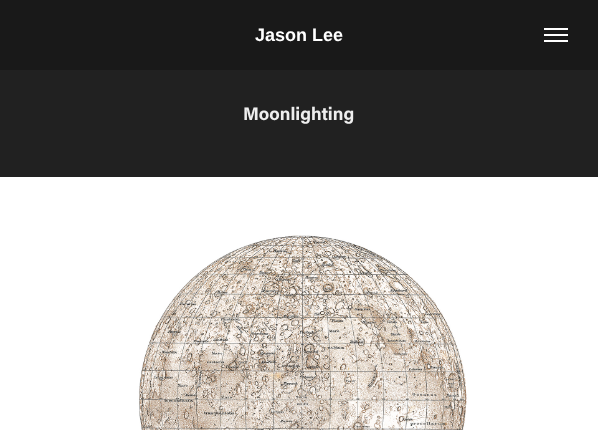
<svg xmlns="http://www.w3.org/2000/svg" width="598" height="430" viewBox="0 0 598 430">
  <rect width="100%" height="100%" fill="#212121"/>
  <rect x="0" y="0" width="598" height="70" fill="#191919"/>
  <text x="255" y="41" font-family="Liberation Sans" font-size="18" font-weight="bold" fill="#ffffff">Jason Lee</text>
  <rect x="544" y="28" width="24" height="2" fill="#ffffff"/>
  <rect x="544" y="34" width="24" height="2" fill="#ffffff"/>
  <rect x="544" y="40" width="24" height="2" fill="#ffffff"/>
  <text x="243" y="120" font-family="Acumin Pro" font-size="18" font-weight="bold" fill="#eeeeee">Moonlighting</text>
  <image x="0" y="177" width="598" height="253" href="img1.png"/>
</svg>
